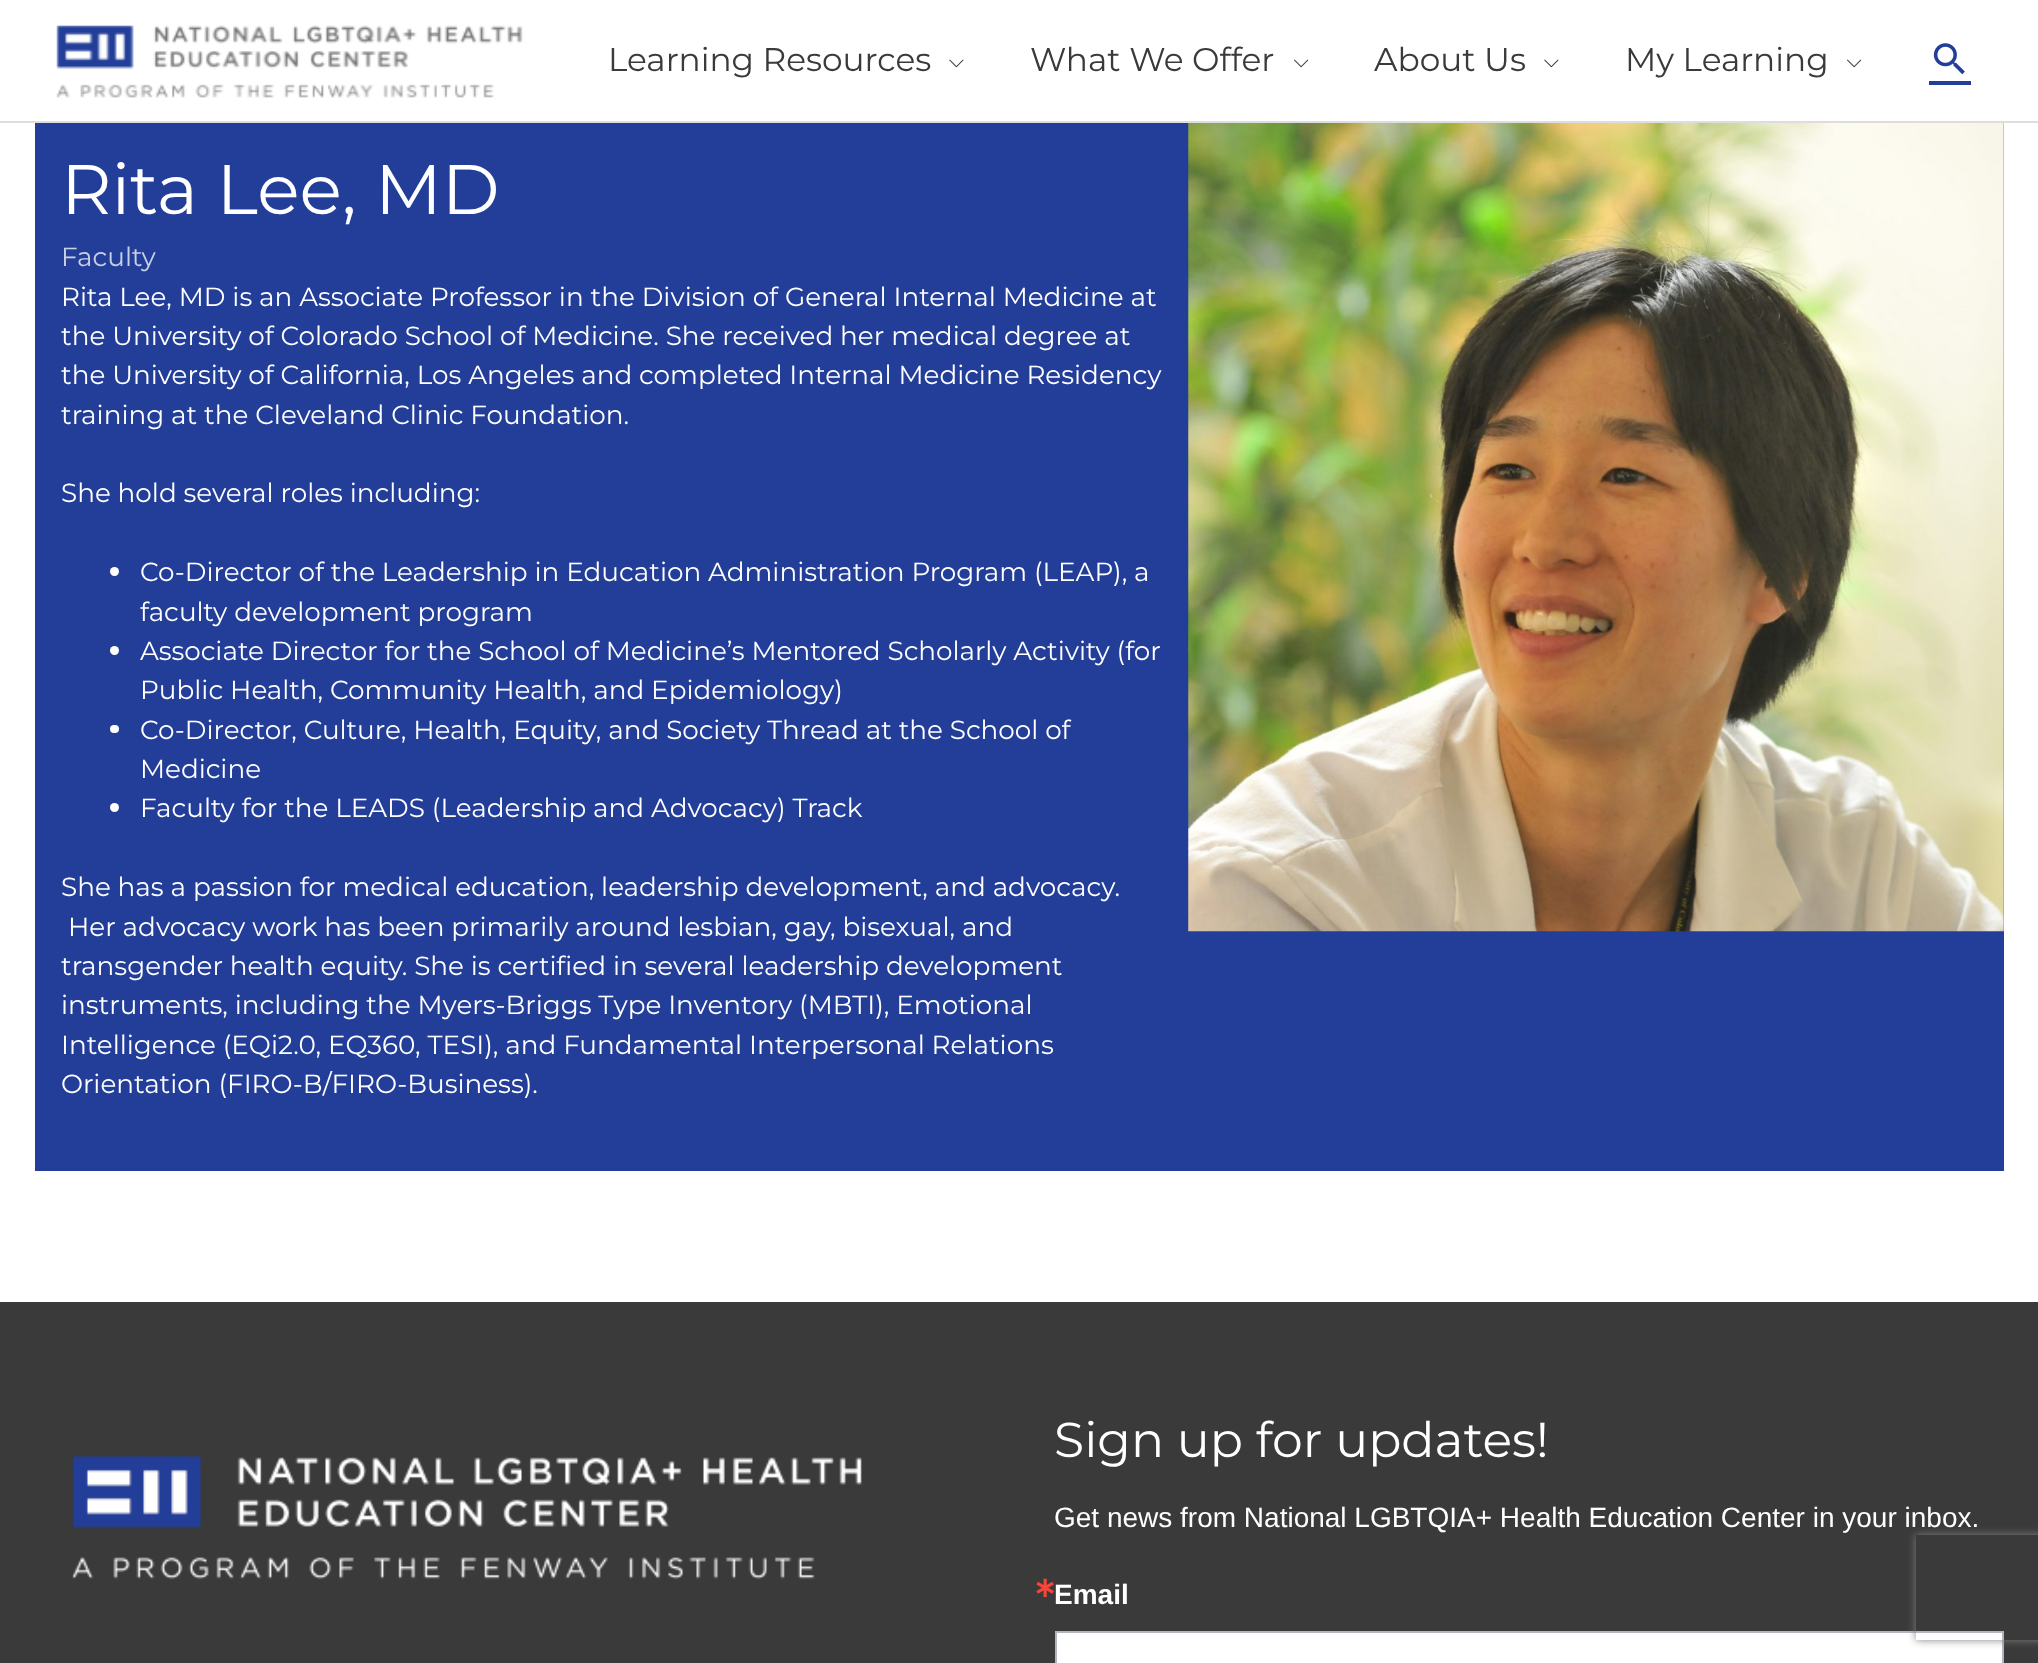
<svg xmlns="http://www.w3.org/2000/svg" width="2038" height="1663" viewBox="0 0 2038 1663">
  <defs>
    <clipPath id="clip1"><path d="M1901 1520H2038V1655H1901ZM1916 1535H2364V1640H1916Z" clip-rule="evenodd"/></clipPath>
    <filter id="blur1" x="-50%" y="-200%" width="200%" height="500%"><feGaussianBlur stdDeviation="4.5"/></filter>
  </defs>
  <rect width="100%" height="100%" fill="#ffffff"/>
  <rect x="0" y="121" width="2038" height="2" fill="#dddddd"/>
  <image x="56" y="25" width="468" height="73" href="img1.png"/>
  <text x="608" y="71" font-family="Montserrat" font-size="32.75" font-weight="100" fill="#3a3a3a">Learning Resources</text>
  <image x="949" y="59" width="15" height="9" href="img2.png"/>
  <text x="1030" y="71" font-family="Montserrat" font-size="32.75" font-weight="100" fill="#3a3a3a">What We Offer</text>
  <image x="1294" y="59" width="15" height="9" href="img3.png"/>
  <text x="1374" y="71" font-family="Montserrat" font-size="32.75" font-weight="100" fill="#3a3a3a">About Us</text>
  <image x="1544" y="59" width="15" height="9" href="img2.png"/>
  <text x="1625" y="71" font-family="Montserrat" font-size="32.75" font-weight="100" fill="#3a3a3a">My Learning</text>
  <image x="1847" y="59" width="15" height="9" href="img3.png"/>
  <rect x="1929" y="81" width="42" height="4" fill="#233e99"/>
  <image x="1933" y="43" width="32" height="32" href="img4.png"/>
  <rect x="35" y="123" width="1969" height="1048" fill="#233e99"/>
  <text x="61" y="214" font-family="Montserrat" font-size="70" font-weight="100" fill="#ffffff">Rita Lee, MD</text>
  <text x="61" y="266" font-family="Montserrat" font-size="26.25" font-weight="100" fill="#c8cfe6">Faculty</text>
  <text x="61" y="306" font-family="Montserrat" font-size="26.25" font-weight="100" fill="#ffffff">Rita Lee, MD is an Associate Professor in the Division of General Internal Medicine at</text>
  <text x="61" y="345" font-family="Montserrat" font-size="26.25" font-weight="100" fill="#ffffff">the University of Colorado School of Medicine. She received her medical degree at</text>
  <text x="61" y="384" font-family="Montserrat" font-size="26.25" font-weight="100" fill="#ffffff">the University of California, Los Angeles and completed Internal Medicine Residency</text>
  <text x="61" y="424" font-family="Montserrat" font-size="26.25" font-weight="100" fill="#ffffff">training at the Cleveland Clinic Foundation.</text>
  <text x="61" y="502" font-family="Montserrat" font-size="26.25" font-weight="100" fill="#ffffff">She hold several roles including:</text>
  <circle cx="114.5" cy="571.5" r="4.5" fill="#ffffff"/>
  <text x="140" y="581" font-family="Montserrat" font-size="26.25" font-weight="100" fill="#ffffff">Co-Director of the Leadership in Education Administration Program (LEAP), a</text>
  <text x="140" y="621" font-family="Montserrat" font-size="26.25" font-weight="100" fill="#ffffff">faculty development program</text>
  <circle cx="114.5" cy="650.5" r="4.5" fill="#ffffff"/>
  <text x="140" y="660" font-family="Montserrat" font-size="26.25" font-weight="100" fill="#ffffff">Associate Director for the School of Medicine’s Mentored Scholarly Activity (for</text>
  <text x="140" y="699" font-family="Montserrat" font-size="26.25" font-weight="100" fill="#ffffff">Public Health, Community Health, and Epidemiology)</text>
  <rect x="110" y="725" width="9" height="8" rx="4" fill="#ffffff"/>
  <text x="140" y="739" font-family="Montserrat" font-size="26.25" font-weight="100" fill="#ffffff">Co-Director, Culture, Health, Equity, and Society Thread at the School of</text>
  <text x="140" y="778" font-family="Montserrat" font-size="26.25" font-weight="100" fill="#ffffff">Medicine</text>
  <circle cx="114.5" cy="807.5" r="4.5" fill="#ffffff"/>
  <text x="140" y="817" font-family="Montserrat" font-size="26.25" font-weight="100" fill="#ffffff">Faculty for the LEADS (Leadership and Advocacy) Track</text>
  <text x="61" y="896" font-family="Montserrat" font-size="26.25" font-weight="100" fill="#ffffff">She has a passion for medical education, leadership development, and advocacy.</text>
  <text x="68" y="936" font-family="Montserrat" font-size="26.25" font-weight="100" fill="#ffffff">Her advocacy work has been primarily around lesbian, gay, bisexual, and</text>
  <text x="61" y="975" font-family="Montserrat" font-size="26.25" font-weight="100" fill="#ffffff">transgender health equity. She is certified in several leadership development</text>
  <text x="61" y="1014" font-family="Montserrat" font-size="26.25" font-weight="100" fill="#ffffff">instruments, including the Myers-Briggs Type Inventory (MBTI), Emotional</text>
  <text x="61" y="1054" font-family="Montserrat" font-size="26.25" font-weight="100" fill="#ffffff">Intelligence (EQi2.0, EQ360, TESI), and Fundamental Interpersonal Relations</text>
  <text x="61" y="1093" font-family="Montserrat" font-size="26.25" font-weight="100" fill="#ffffff">Orientation (FIRO-B/FIRO-Business).</text>
  <image x="1188" y="123" width="816" height="809" href="img5.png"/>
  <rect x="0" y="1302" width="2038" height="361" fill="#3a3a3a"/>
  <image x="71" y="1455" width="791" height="125" href="img6.png"/>
  <text x="1054" y="1457" font-family="Montserrat" font-size="49" font-weight="100" fill="#ffffff">Sign up for updates!</text>
  <text x="1054" y="1527" font-family="Liberation Sans" font-size="28" fill="#ffffff">Get news from National LGBTQIA+ Health Education Center in your inbox.</text>
  <text x="1033" y="1597" font-family="DejaVu Sans" font-size="28" font-weight="bold" fill="#f5463b">∗</text>
  <text x="1054" y="1604" font-family="Liberation Sans" font-size="28" font-weight="bold" fill="#ffffff">Email</text>
  <rect x="1056" y="1632" width="947" height="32" fill="#ffffff" stroke="#b0b6bb" stroke-width="2"/>
  <g clip-path="url(#clip1)">
    <rect x="1916" y="1535" width="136" height="105" fill="#808080" filter="url(#blur1)"/>
  </g>
</svg>
